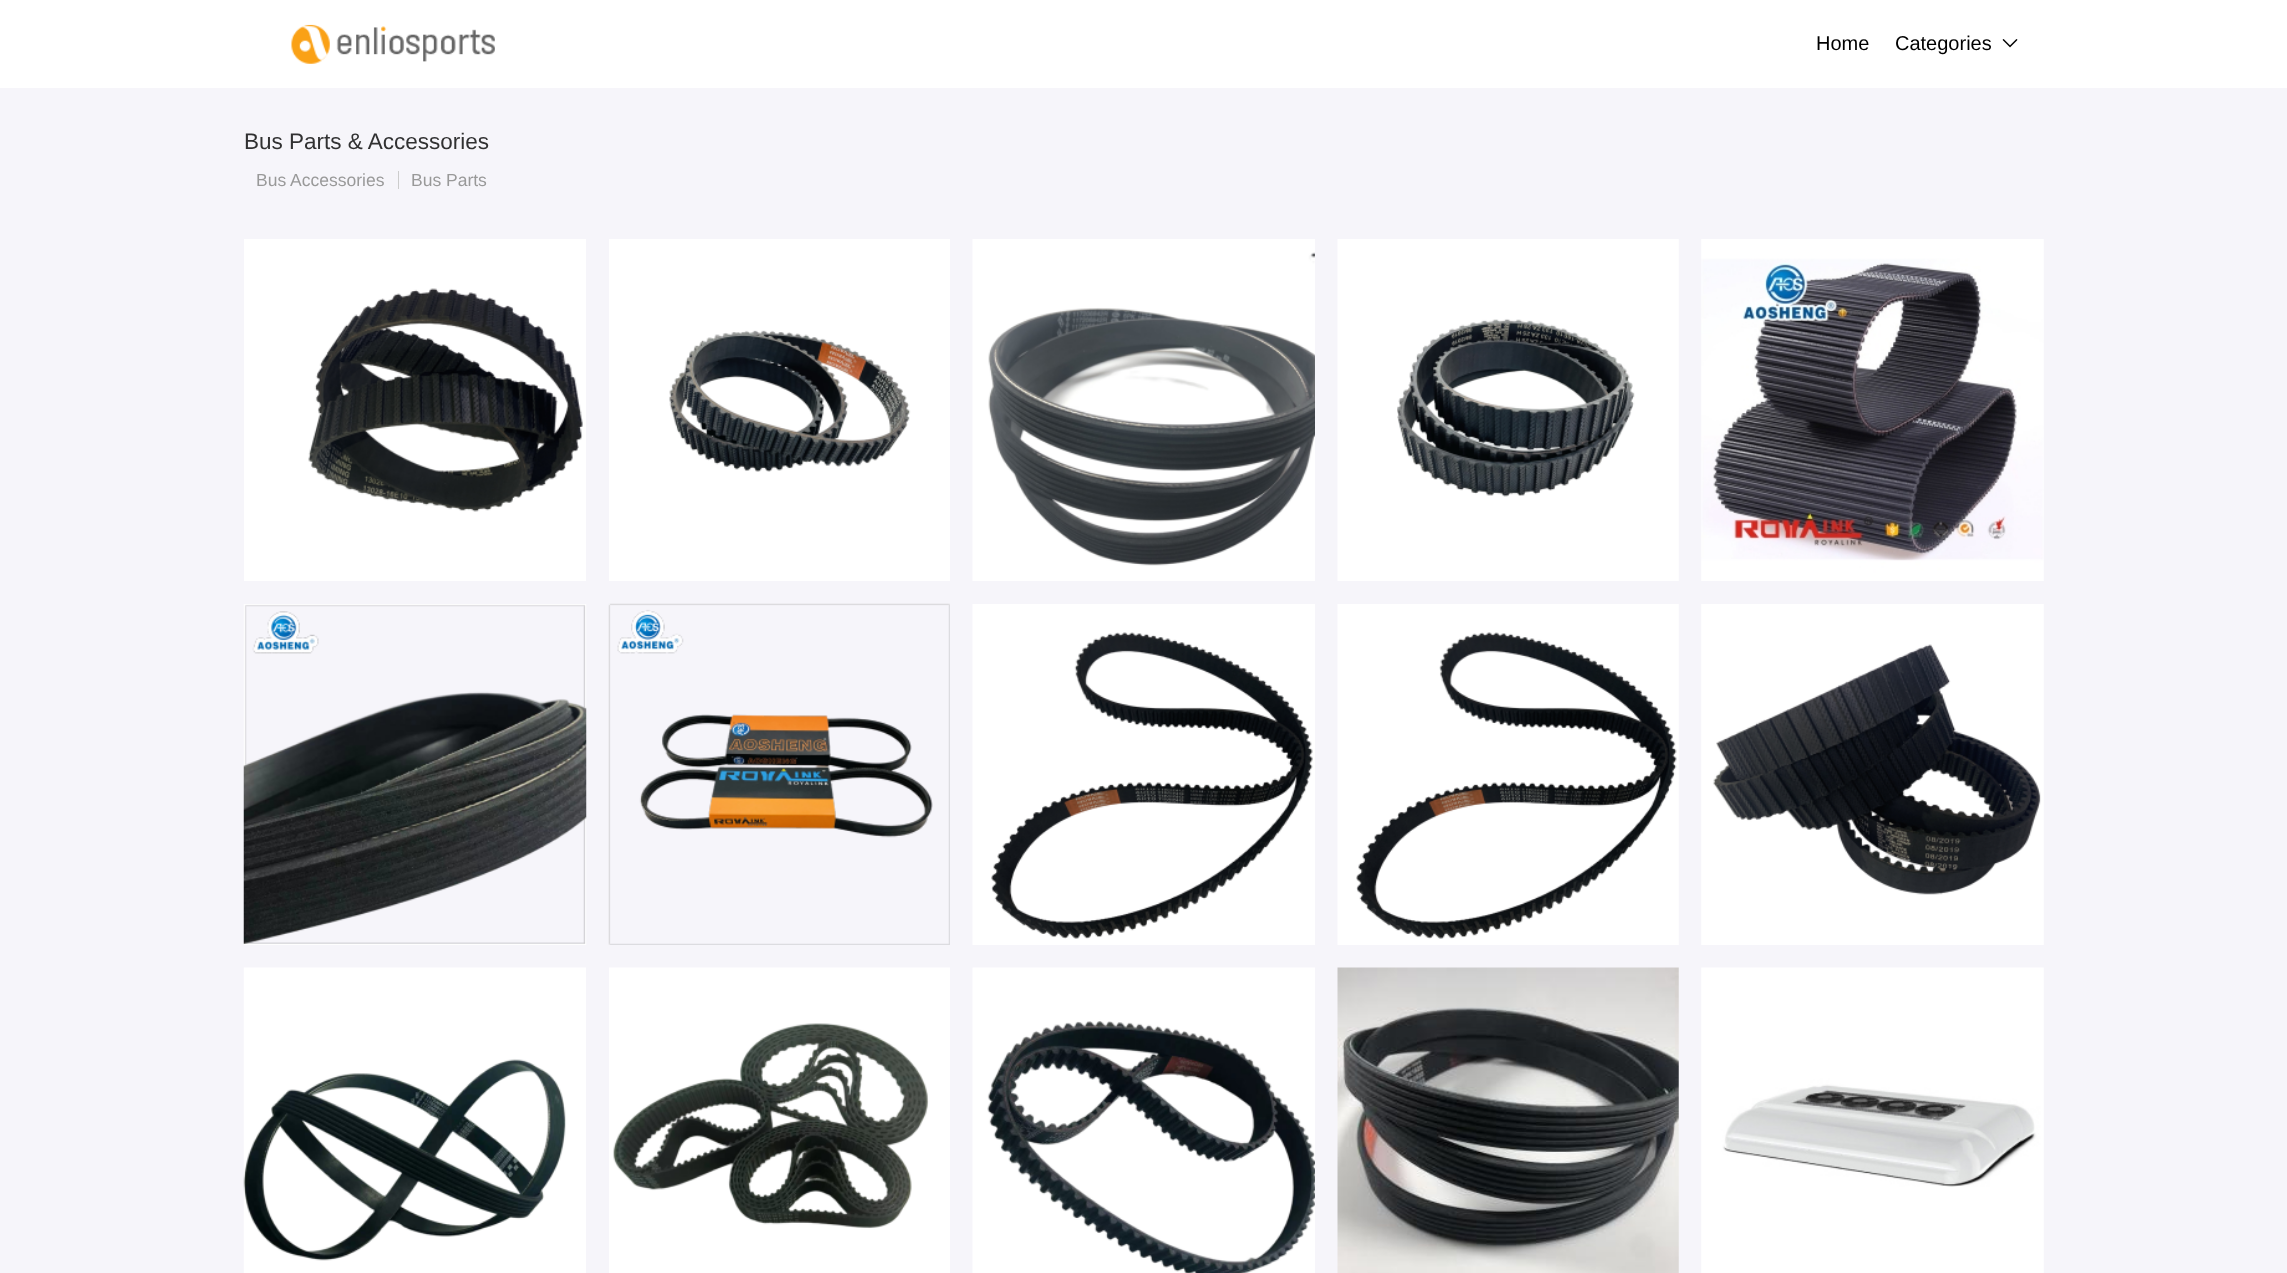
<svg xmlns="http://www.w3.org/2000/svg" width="2287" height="1273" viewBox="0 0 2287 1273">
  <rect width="100%" height="100%" fill="#ffffff"/>
  <image x="291" y="24" width="204" height="40" href="img1.png"/>
  <text x="1816" y="50" font-family="Liberation Sans" font-size="20" fill="#000000">Home</text>
  <text x="1895" y="50" font-family="Liberation Sans" font-size="20" fill="#000000">Categories</text>
  <image x="2002" y="39" width="16" height="9" href="img2.png"/>
  <rect x="0" y="88" width="2287" height="1185" fill="#f6f5fa"/>
  <text x="244" y="149" font-family="Liberation Sans" font-size="22.5" fill="#313132">Bus Parts &amp; Accessories</text>
  <rect x="398" y="171" width="1" height="18" fill="#cccccc"/>
  <text x="256" y="186" font-family="Liberation Sans" font-size="17.5" fill="#999999">Bus Accessories</text>
  <text x="411" y="186" font-family="Liberation Sans" font-size="17.5" fill="#999999">Bus Parts</text>
  <image x="244" y="239" width="342" height="342" href="img3.png"/>
  <image x="609" y="239" width="341" height="342" href="img4.png"/>
  <image x="972" y="239" width="343" height="342" href="img5.png"/>
  <image x="1337" y="239" width="342" height="342" href="img6.png"/>
  <image x="1701" y="239" width="343" height="342" href="img7.png"/>
  <image x="243" y="604" width="344" height="341" href="img8.png"/>
  <image x="608" y="603" width="342" height="342" href="img9.png"/>
  <image x="972" y="604" width="343" height="341" href="img10.png"/>
  <image x="1337" y="604" width="342" height="341" href="img11.png"/>
  <image x="1701" y="604" width="343" height="341" href="img12.png"/>
  <image x="243" y="967" width="343" height="306" href="img13.png"/>
  <image x="609" y="967" width="341" height="306" href="img14.png"/>
  <image x="972" y="967" width="343" height="306" href="img15.png"/>
  <image x="1337" y="967" width="342" height="306" href="img16.png"/>
  <image x="1701" y="967" width="343" height="306" href="img17.png"/>
</svg>
